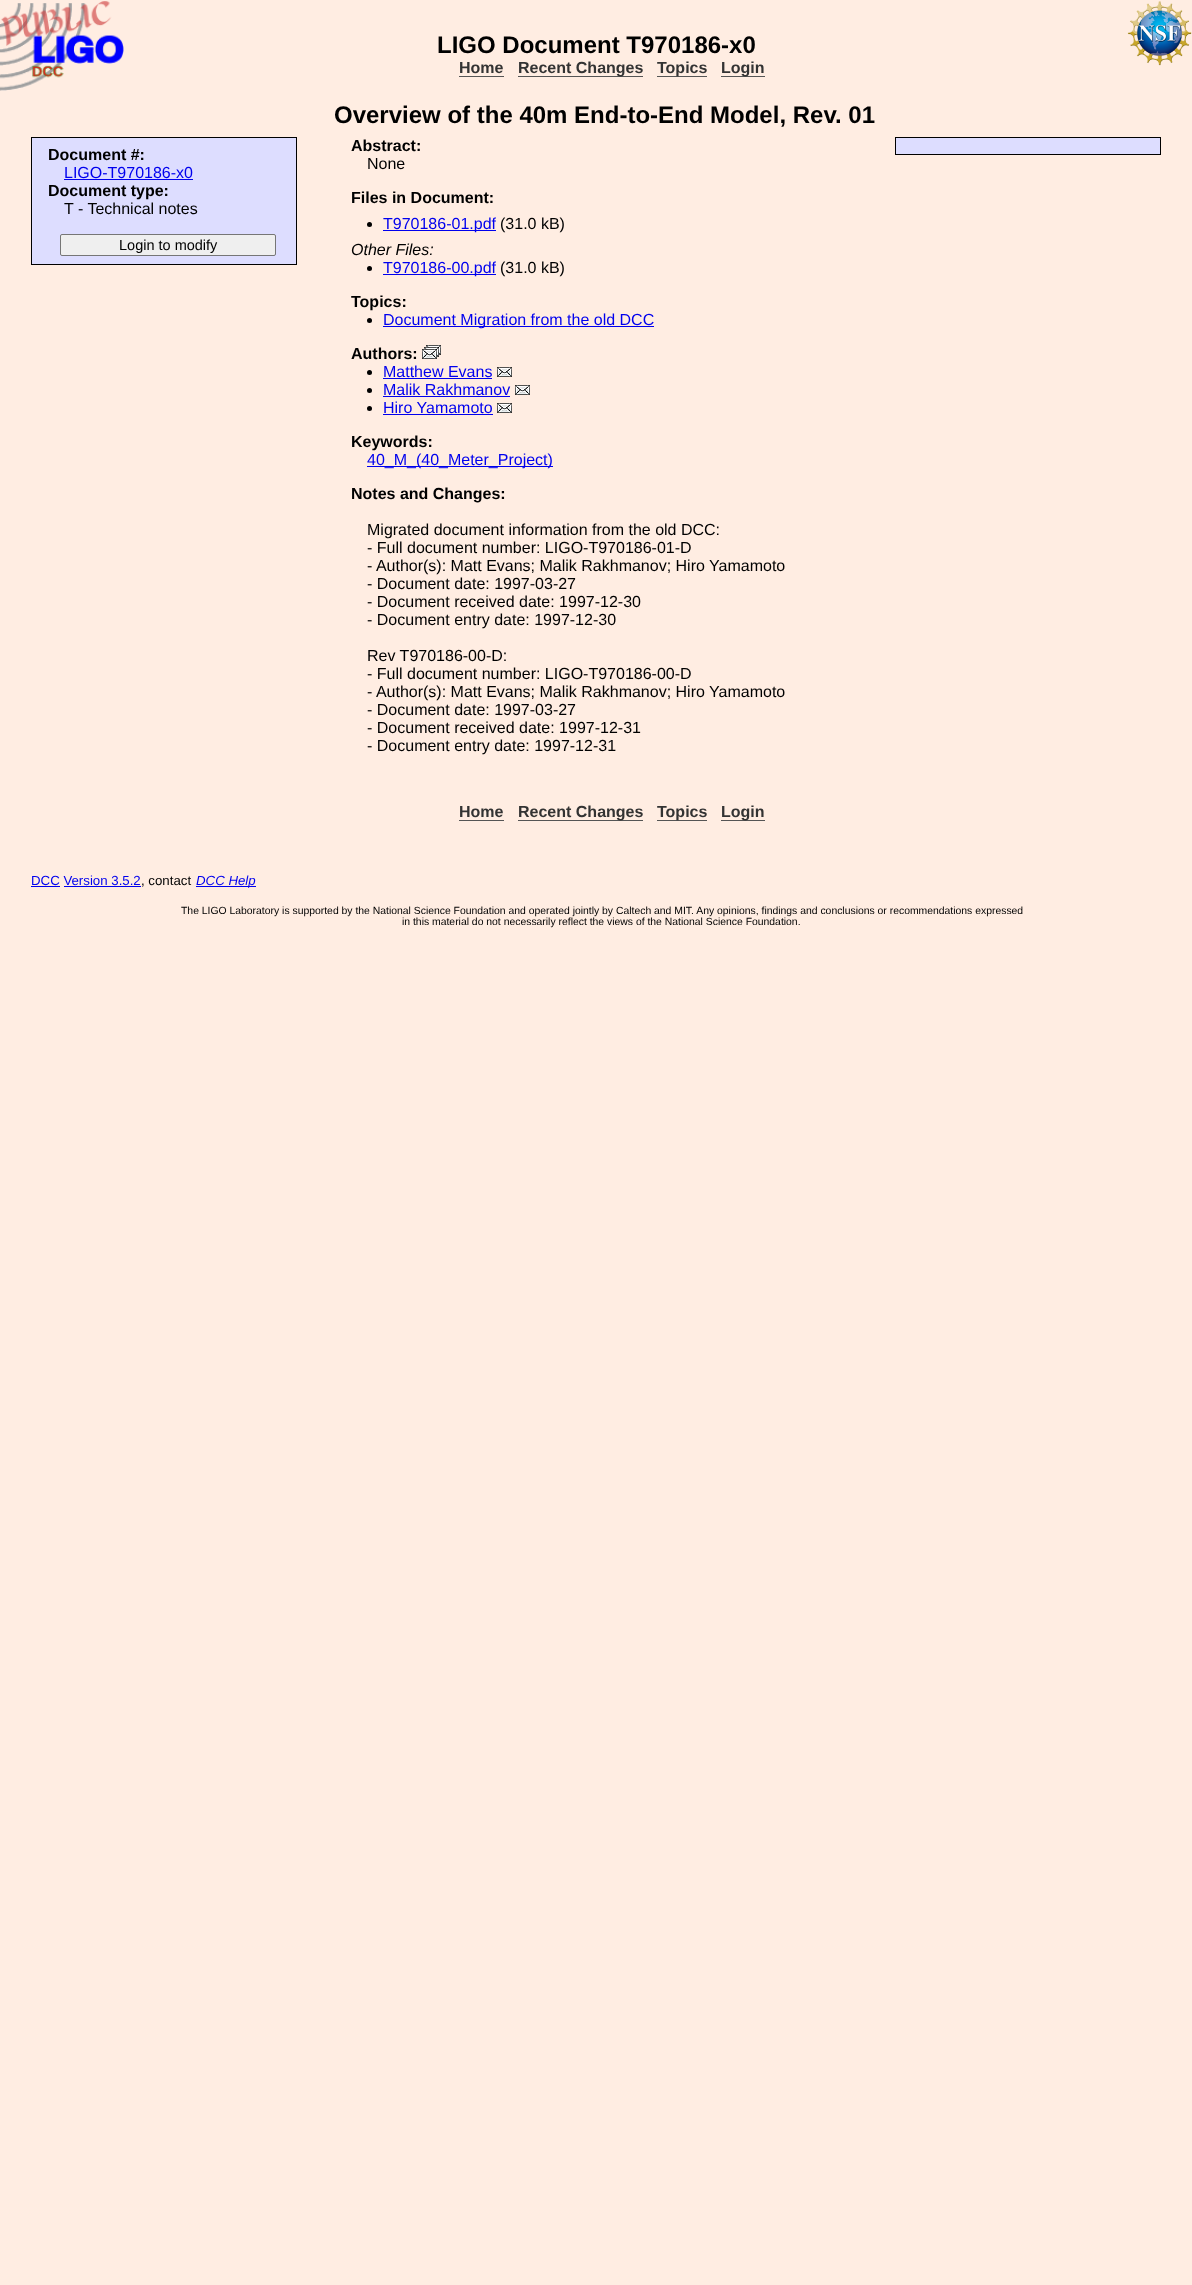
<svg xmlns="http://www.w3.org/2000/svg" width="1192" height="2285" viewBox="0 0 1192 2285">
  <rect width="100%" height="100%" fill="#ffede2"/>
  <image x="0" y="1" width="1192" height="90" href="img1.png"/>
  <text x="437" y="53" font-family="Liberation Sans" font-size="24" font-weight="bold" fill="#000000">LIGO Document T970186-x0</text>
  <text x="459" y="73" font-family="Liberation Sans" font-size="16" font-weight="bold" fill="#333333">Home</text>
  <rect x="459" y="76" width="45" height="1" fill="#555555"/>
  <rect x="518" y="76" width="125" height="1" fill="#555555"/>
  <text x="518" y="73" font-family="Liberation Sans" font-size="16" font-weight="bold" fill="#333333">Recent Changes</text>
  <rect x="657" y="76" width="50" height="1" fill="#555555"/>
  <text x="657" y="73" font-family="Liberation Sans" font-size="16" font-weight="bold" fill="#333333">Topics</text>
  <rect x="721" y="76" width="44" height="1" fill="#555555"/>
  <text x="721" y="73" font-family="Liberation Sans" font-size="16" font-weight="bold" fill="#333333">Login</text>
  <text x="334" y="123" font-family="Liberation Sans" font-size="24" font-weight="bold" fill="#000000">Overview of the 40m End-to-End Model, Rev. 01</text>
  <rect x="31.5" y="137.5" width="265" height="127" fill="#ddddff" stroke="#000000"/>
  <text x="48" y="160" font-family="Liberation Sans" font-size="16" font-weight="bold" fill="#000000">Document #:</text>
  <text x="64" y="178" font-family="Liberation Sans" font-size="16" fill="#0000ee">LIGO-T970186-x0</text>
  <rect x="64" y="179" width="129" height="1" fill="#0000ee"/>
  <text x="48" y="196" font-family="Liberation Sans" font-size="16" font-weight="bold" fill="#000000">Document type:</text>
  <text x="64" y="214" font-family="Liberation Sans" font-size="16" fill="#000000">T - Technical notes</text>
  <rect x="60.5" y="234.5" width="215" height="21" rx="1.5" fill="#efefef" stroke="#767676"/>
  <text x="119" y="250" font-family="Liberation Sans" font-size="14.5" fill="#000000">Login to modify</text>
  <text x="351" y="151" font-family="Liberation Sans" font-size="16" font-weight="bold" fill="#000000">Abstract:</text>
  <text x="367" y="169" font-family="Liberation Sans" font-size="16" fill="#000000">None</text>
  <rect x="895.5" y="137.5" width="265" height="17" fill="#ddddff" stroke="#000000"/>
  <text x="351" y="203" font-family="Liberation Sans" font-size="16" font-weight="bold" fill="#000000">Files in Document:</text>
  <circle cx="369.5" cy="224.5" r="2.5" fill="#000000"/>
  <rect x="383" y="230" width="113" height="1" fill="#0000ee"/>
  <text x="383" y="229" font-family="Liberation Sans" font-size="16" fill="#0000ee">T970186-01.pdf</text>
  <text x="500" y="229" font-family="Liberation Sans" font-size="16" fill="#000000">(31.0 kB)</text>
  <text x="351" y="255" font-family="Liberation Sans" font-size="16" font-style="italic" fill="#000000">Other Files:</text>
  <circle cx="369.5" cy="268.5" r="2.5" fill="#000000"/>
  <rect x="383" y="274" width="113" height="1" fill="#0000ee"/>
  <text x="383" y="273" font-family="Liberation Sans" font-size="16" fill="#0000ee">T970186-00.pdf</text>
  <text x="500" y="273" font-family="Liberation Sans" font-size="16" fill="#000000">(31.0 kB)</text>
  <text x="351" y="307" font-family="Liberation Sans" font-size="16" font-weight="bold" fill="#000000">Topics:</text>
  <circle cx="369.5" cy="320.5" r="2.5" fill="#000000"/>
  <rect x="383" y="326" width="271" height="1" fill="#0000ee"/>
  <text x="383" y="325" font-family="Liberation Sans" font-size="16" fill="#0000ee">Document Migration from the old DCC</text>
  <text x="351" y="359" font-family="Liberation Sans" font-size="16" font-weight="bold" fill="#000000">Authors:</text>
  <image x="422" y="345" width="19" height="14" href="img2.png"/>
  <circle cx="369.5" cy="372.5" r="2.5" fill="#000000"/>
  <text x="383" y="377" font-family="Liberation Sans" font-size="16" fill="#0000ee">Matthew Evans</text>
  <rect x="383" y="378" width="109" height="1" fill="#0000ee"/>
  <image x="497" y="367" width="15" height="10" href="img3.png"/>
  <circle cx="369.5" cy="390.5" r="2.5" fill="#000000"/>
  <text x="383" y="395" font-family="Liberation Sans" font-size="16" fill="#0000ee">Malik Rakhmanov</text>
  <rect x="383" y="396" width="127" height="1" fill="#0000ee"/>
  <image x="515" y="385" width="15" height="10" href="img3.png"/>
  <circle cx="369.5" cy="408.5" r="2.5" fill="#000000"/>
  <text x="383" y="413" font-family="Liberation Sans" font-size="16" fill="#0000ee">Hiro Yamamoto</text>
  <rect x="383" y="414" width="110" height="1" fill="#0000ee"/>
  <image x="497" y="403" width="15" height="10" href="img3.png"/>
  <text x="351" y="447" font-family="Liberation Sans" font-size="16" font-weight="bold" fill="#000000">Keywords:</text>
  <rect x="367" y="466" width="186" height="1" fill="#0000ee"/>
  <text x="367" y="465" font-family="Liberation Sans" font-size="16" fill="#0000ee">40_M_(40_Meter_Project)</text>
  <text x="351" y="499" font-family="Liberation Sans" font-size="16" font-weight="bold" fill="#000000">Notes and Changes:</text>
  <text x="367" y="535" font-family="Liberation Sans" font-size="16" fill="#000000">Migrated document information from the old DCC:</text>
  <text x="367" y="553" font-family="Liberation Sans" font-size="16" fill="#000000">- Full document number: LIGO-T970186-01-D</text>
  <text x="367" y="571" font-family="Liberation Sans" font-size="16" fill="#000000">- Author(s): Matt Evans; Malik Rakhmanov; Hiro Yamamoto</text>
  <text x="367" y="589" font-family="Liberation Sans" font-size="16" fill="#000000">- Document date: 1997-03-27</text>
  <text x="367" y="607" font-family="Liberation Sans" font-size="16" fill="#000000">- Document received date: 1997-12-30</text>
  <text x="367" y="625" font-family="Liberation Sans" font-size="16" fill="#000000">- Document entry date: 1997-12-30</text>
  <text x="367" y="661" font-family="Liberation Sans" font-size="16" fill="#000000">Rev T970186-00-D:</text>
  <text x="367" y="679" font-family="Liberation Sans" font-size="16" fill="#000000">- Full document number: LIGO-T970186-00-D</text>
  <text x="367" y="697" font-family="Liberation Sans" font-size="16" fill="#000000">- Author(s): Matt Evans; Malik Rakhmanov; Hiro Yamamoto</text>
  <text x="367" y="715" font-family="Liberation Sans" font-size="16" fill="#000000">- Document date: 1997-03-27</text>
  <text x="367" y="733" font-family="Liberation Sans" font-size="16" fill="#000000">- Document received date: 1997-12-31</text>
  <text x="367" y="751" font-family="Liberation Sans" font-size="16" fill="#000000">- Document entry date: 1997-12-31</text>
  <text x="459" y="817" font-family="Liberation Sans" font-size="16" font-weight="bold" fill="#333333">Home</text>
  <rect x="459" y="820" width="45" height="1" fill="#555555"/>
  <rect x="518" y="820" width="125" height="1" fill="#555555"/>
  <text x="518" y="817" font-family="Liberation Sans" font-size="16" font-weight="bold" fill="#333333">Recent Changes</text>
  <rect x="657" y="820" width="50" height="1" fill="#555555"/>
  <text x="657" y="817" font-family="Liberation Sans" font-size="16" font-weight="bold" fill="#333333">Topics</text>
  <rect x="721" y="820" width="44" height="1" fill="#555555"/>
  <text x="721" y="817" font-family="Liberation Sans" font-size="16" font-weight="bold" fill="#333333">Login</text>
  <text x="31" y="885" font-family="Liberation Sans" font-size="13.25" fill="#0000ee">DCC Version 3.5.2</text>
  <rect x="31" y="886" width="29" height="1" fill="#0000ee"/>
  <text x="141" y="885" font-family="Liberation Sans" font-size="13.25" fill="#000000">, contact</text>
  <rect x="64" y="886" width="77" height="1" fill="#0000ee"/>
  <rect x="196" y="886" width="60" height="1" fill="#0000ee"/>
  <text x="196" y="885" font-family="Liberation Sans" font-size="13.25" font-style="italic" fill="#0000ee">DCC Help</text>
  <text x="181" y="914" font-family="Liberation Sans" font-size="10.4" fill="#000000">The LIGO Laboratory is supported by the National Science Foundation and operated jointly by Caltech and MIT. Any opinions, findings and conclusions or recommendations expressed</text>
  <text x="402" y="925" font-family="Liberation Sans" font-size="10.4" fill="#000000">in this material do not necessarily reflect the views of the National Science Foundation.</text>
</svg>
